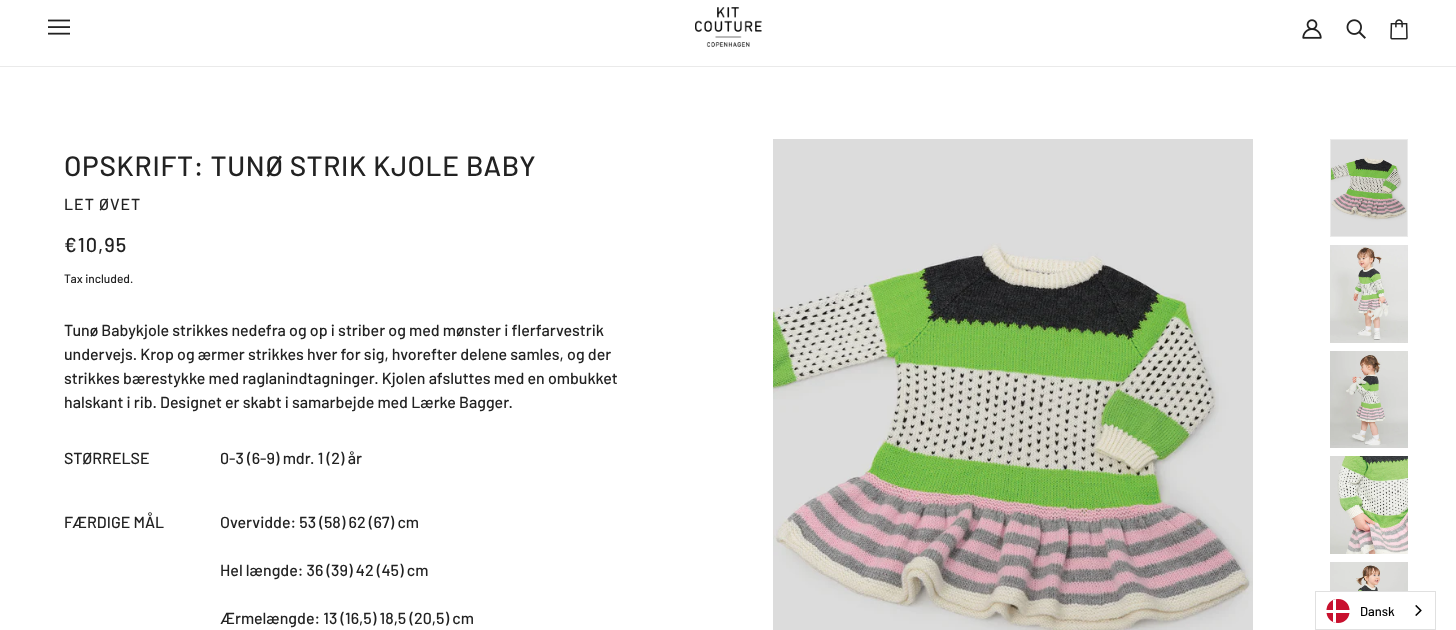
<svg xmlns="http://www.w3.org/2000/svg" width="1456" height="630" viewBox="0 0 1456 630">
  <rect width="100%" height="100%" fill="#ffffff"/>
  <rect x="0" y="66" width="1456" height="1" fill="#eaeaea"/>
  <image x="48" y="19" width="22" height="16" href="img1.png"/>
  <image x="695" y="7" width="67" height="40" href="img2.png"/>
  <image x="1302" y="19" width="20" height="20" href="img3.png"/>
  <image x="1346" y="19" width="20" height="20" href="img4.png"/>
  <image x="1390" y="19" width="18" height="21" href="img5.png"/>
  <text x="64" y="176" font-family="Barlow" font-size="28" font-weight="500" letter-spacing="0.7" fill="#222222">OPSKRIFT: TUNØ STRIK KJOLE BABY</text>
  <text x="64" y="210" font-family="Barlow" font-size="16" font-weight="500" letter-spacing="1" fill="#222222">LET ØVET</text>
  <text x="64" y="252" font-family="Barlow" font-size="20" font-weight="500" letter-spacing="1" fill="#222222">€10,95</text>
  <text x="64" y="283" font-family="Barlow" font-size="12" font-weight="500" fill="#222222">Tax included.</text>
  <text x="64" y="336" font-family="Barlow" font-size="16" font-weight="500" fill="#222222">Tunø Babykjole strikkes nedefra og op i striber og med mønster i flerfarvestrik</text>
  <text x="64" y="360" font-family="Barlow" font-size="16" font-weight="500" fill="#222222">undervejs. Krop og ærmer strikkes hver for sig, hvorefter delene samles, og der</text>
  <text x="64" y="384" font-family="Barlow" font-size="16" font-weight="500" fill="#222222">strikkes bærestykke med raglanindtagninger. Kjolen afsluttes med en ombukket</text>
  <text x="64" y="408" font-family="Barlow" font-size="16" font-weight="500" fill="#222222">halskant i rib. Designet er skabt i samarbejde med Lærke Bagger.</text>
  <text x="64" y="464" font-family="Barlow" font-size="16" font-weight="500" fill="#222222">STØRRELSE</text>
  <text x="220" y="464" font-family="Barlow" font-size="16" font-weight="500" fill="#222222">0-3 (6-9) mdr. 1 (2) år</text>
  <text x="64" y="528" font-family="Barlow" font-size="16" font-weight="500" fill="#222222">FÆRDIGE MÅL</text>
  <text x="220" y="528" font-family="Barlow" font-size="16" font-weight="500" fill="#222222">Overvidde: 53 (58) 62 (67) cm</text>
  <text x="220" y="576" font-family="Barlow" font-size="16" font-weight="500" fill="#222222">Hel længde: 36 (39) 42 (45) cm</text>
  <text x="220" y="624" font-family="Barlow" font-size="16" font-weight="500" fill="#222222">Ærmelængde: 13 (16,5) 18,5 (20,5) cm</text>
  <image x="773" y="139" width="480" height="491" href="img6.png"/>
  <rect x="1330.5" y="139.5" width="77" height="97" fill="none" stroke="#eaeaea"/>
  <image x="1331" y="140" width="76" height="96" href="img7.png"/>
  <image x="1330" y="245" width="78" height="98" href="img8.png"/>
  <image x="1330" y="351" width="78" height="97" href="img9.png"/>
  <image x="1330" y="456" width="78" height="98" href="img10.png"/>
  <image x="1330" y="562" width="78" height="29" href="img11.png"/>
  <rect x="1315.5" y="591.5" width="120" height="38" fill="none" stroke="#e0e0e0"/>
  <path d="M1338 599C1353.5 599 1353.5 623 1338 623C1322.5 623 1322.5 599 1338 599Z" fill="#c8102e"/>
  <path d="M1333 600L1336 599V623L1333 622Z" fill="#ffffff"/>
  <rect x="1326" y="610" width="24" height="3" fill="#ffffff"/>
  <text x="1360" y="616" font-family="Barlow" font-size="13" font-weight="500" fill="#000000">Dansk</text>
  <image x="1415" y="605" width="7" height="11" href="img12.png"/>
</svg>
